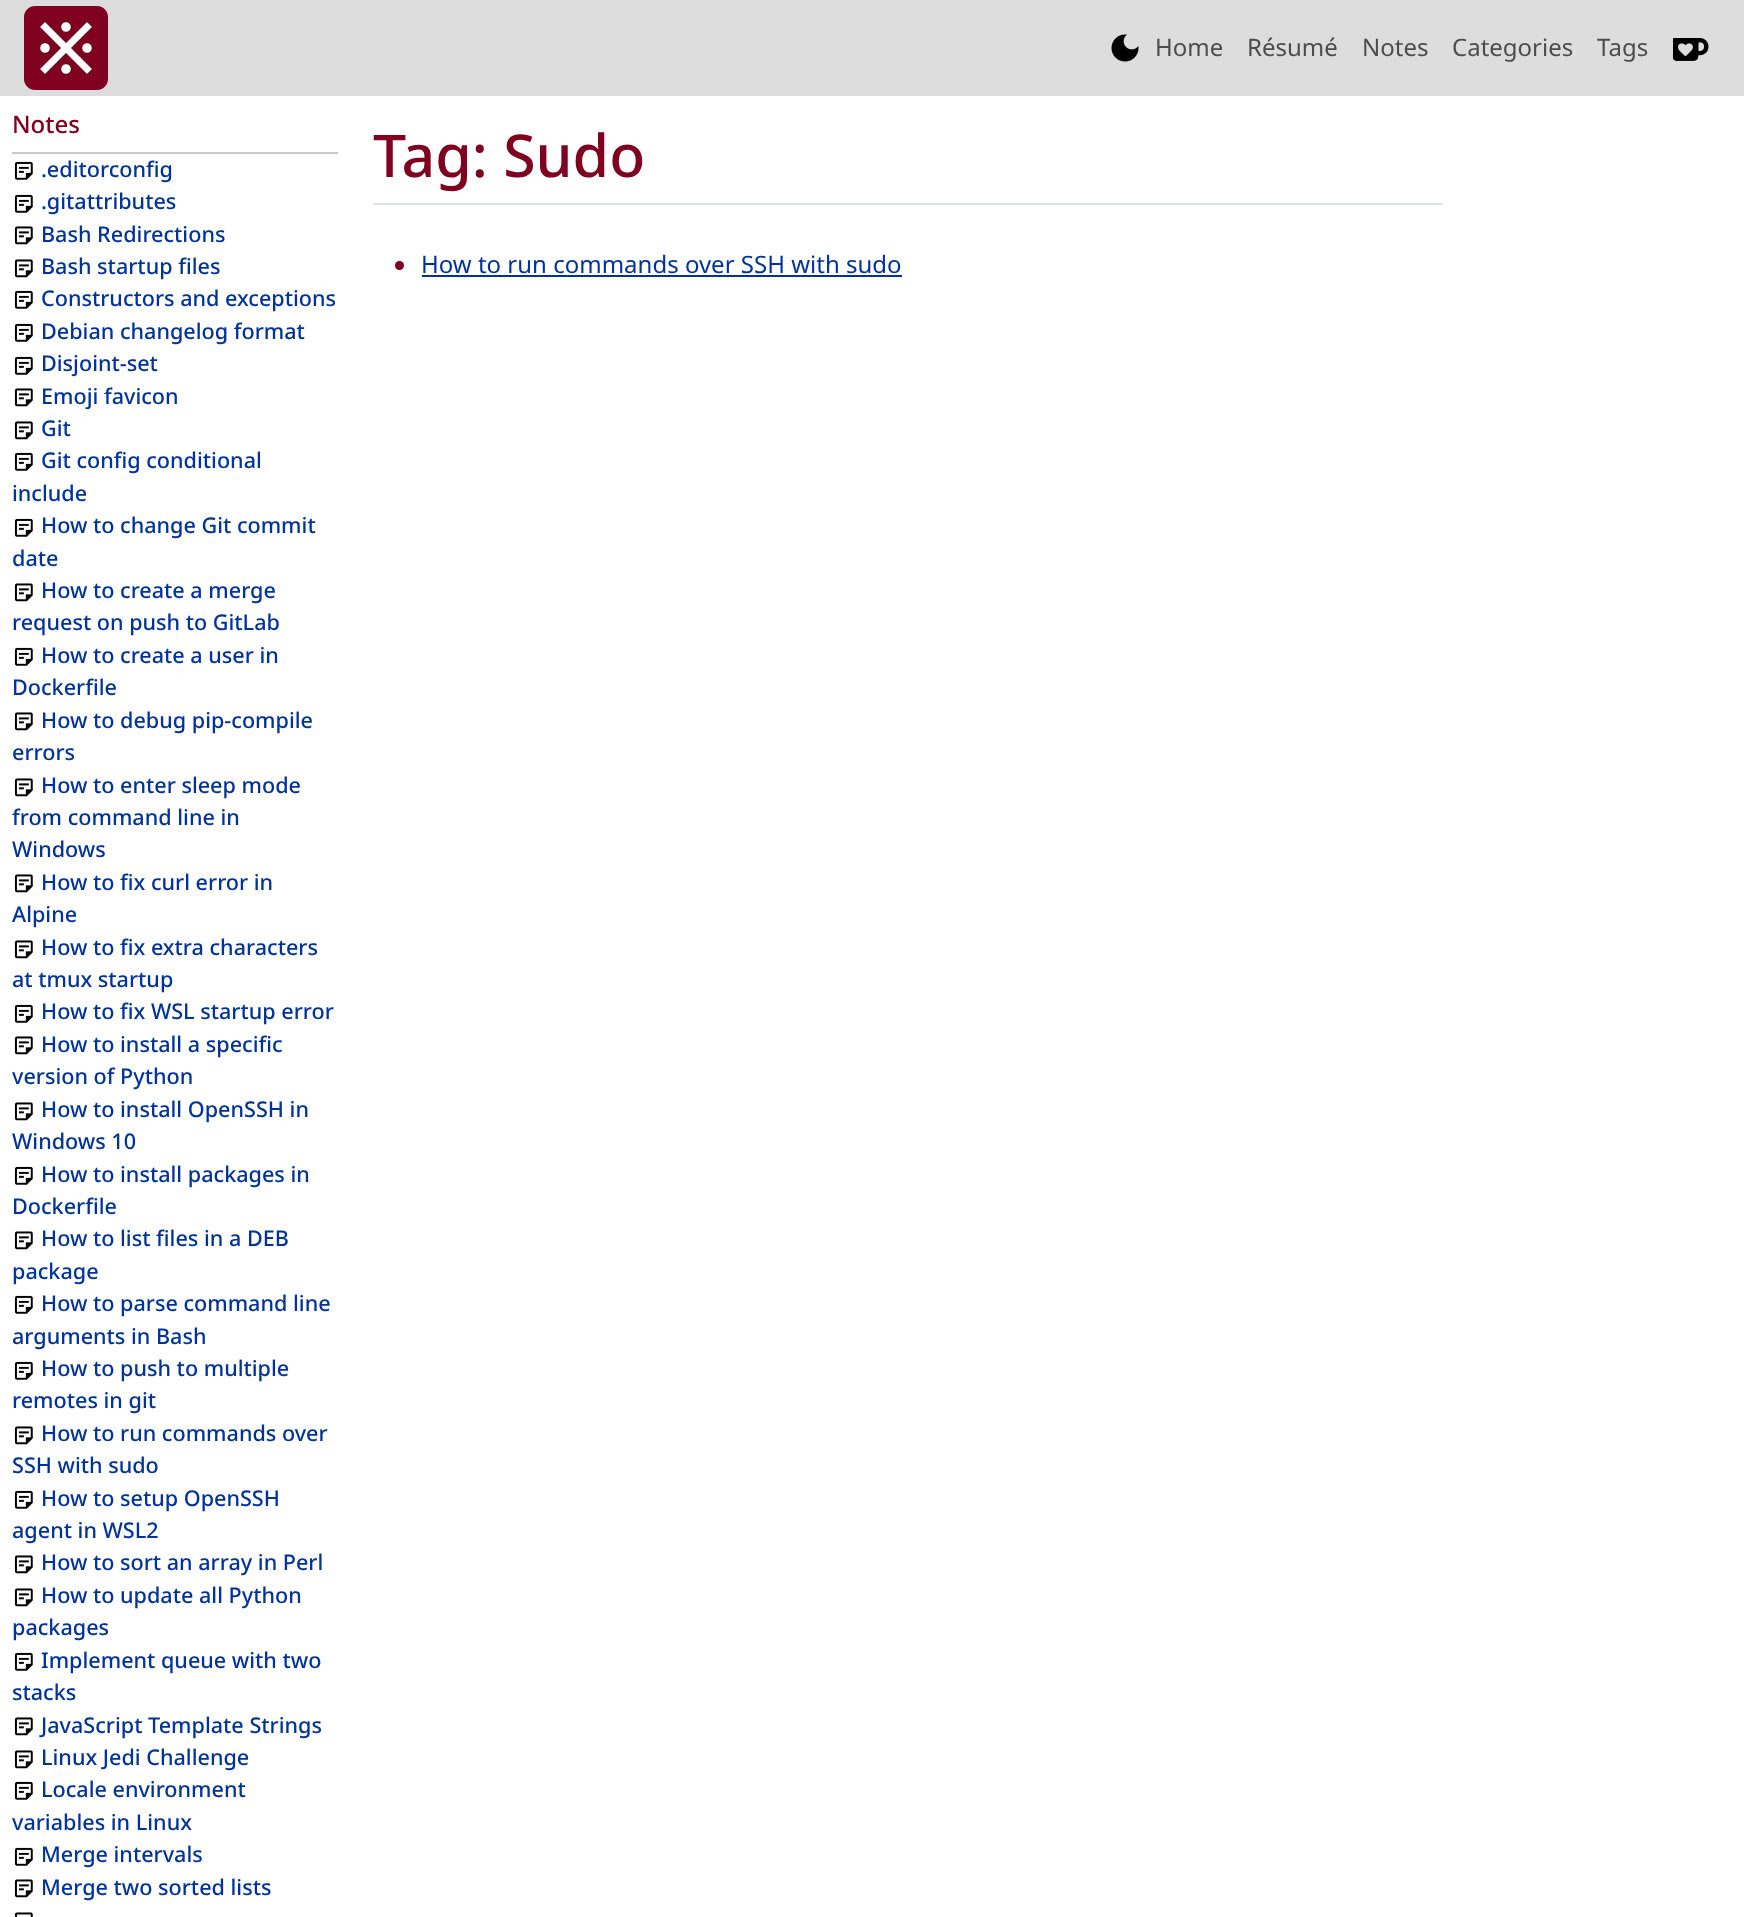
<svg xmlns="http://www.w3.org/2000/svg" width="1744" height="1917" viewBox="0 0 1744 1917">
  <rect width="100%" height="100%" fill="#ffffff"/>
  <rect x="0" y="0" width="1744" height="96" fill="#dddddd"/>
  <image x="24" y="6" width="84" height="84" href="img1.png"/>
  <image x="1111" y="34" width="28" height="28" href="img2.png"/>
  <text x="1155" y="56" font-family="Noto Sans" font-size="24" fill="#4d4d4d">Home</text>
  <text x="1247" y="56" font-family="Noto Sans" font-size="24" fill="#4d4d4d">Résumé</text>
  <text x="1362" y="56" font-family="Noto Sans" font-size="24" fill="#4d4d4d">Notes</text>
  <text x="1452" y="56" font-family="Noto Sans" font-size="24" fill="#4d4d4d">Categories</text>
  <text x="1597" y="56" font-family="Noto Sans" font-size="24" fill="#4d4d4d">Tags</text>
  <image x="1673" y="38" width="36" height="23" href="img3.png"/>
  <text x="12" y="133" font-family="Noto Sans" font-size="24" font-weight="500" fill="#800020">Notes</text>
  <rect x="12" y="152" width="326" height="2" fill="#c8c9ca"/>
  <image x="14" y="161" width="19" height="19" href="img4.png"/>
  <text x="41" y="177" font-family="Noto Sans" font-size="21.6" font-weight="500" fill="#003399">.editorconfig</text>
  <image x="14" y="194" width="19" height="19" href="img4.png"/>
  <text x="41" y="209" font-family="Noto Sans" font-size="21.6" font-weight="500" fill="#003399">.gitattributes</text>
  <image x="14" y="226" width="19" height="19" href="img5.png"/>
  <text x="41" y="242" font-family="Noto Sans" font-size="21.6" font-weight="500" fill="#003399">Bash Redirections</text>
  <image x="14" y="259" width="19" height="19" href="img5.png"/>
  <text x="41" y="274" font-family="Noto Sans" font-size="21.6" font-weight="500" fill="#003399">Bash startup files</text>
  <image x="14" y="290" width="19" height="19" href="img4.png"/>
  <text x="41" y="306" font-family="Noto Sans" font-size="21.6" font-weight="500" fill="#003399">Constructors and exceptions</text>
  <image x="14" y="323" width="19" height="19" href="img4.png"/>
  <text x="41" y="339" font-family="Noto Sans" font-size="21.6" font-weight="500" fill="#003399">Debian changelog format</text>
  <image x="14" y="356" width="19" height="19" href="img4.png"/>
  <text x="41" y="371" font-family="Noto Sans" font-size="21.6" font-weight="500" fill="#003399">Disjoint-set</text>
  <image x="14" y="388" width="19" height="19" href="img5.png"/>
  <text x="41" y="404" font-family="Noto Sans" font-size="21.6" font-weight="500" fill="#003399">Emoji favicon</text>
  <image x="14" y="421" width="19" height="19" href="img5.png"/>
  <text x="41" y="436" font-family="Noto Sans" font-size="21.6" font-weight="500" fill="#003399">Git</text>
  <image x="14" y="452" width="19" height="19" href="img4.png"/>
  <text x="41" y="468" font-family="Noto Sans" font-size="21.6" font-weight="500" fill="#003399">Git config conditional</text>
  <text x="12" y="501" font-family="Noto Sans" font-size="21.6" font-weight="500" fill="#003399">include</text>
  <image x="14" y="518" width="19" height="19" href="img4.png"/>
  <text x="41" y="533" font-family="Noto Sans" font-size="21.6" font-weight="500" fill="#003399">How to change Git commit</text>
  <text x="12" y="566" font-family="Noto Sans" font-size="21.6" font-weight="500" fill="#003399">date</text>
  <image x="14" y="583" width="19" height="19" href="img5.png"/>
  <text x="41" y="598" font-family="Noto Sans" font-size="21.6" font-weight="500" fill="#003399">How to create a merge</text>
  <text x="12" y="630" font-family="Noto Sans" font-size="21.6" font-weight="500" fill="#003399">request on push to GitLab</text>
  <image x="14" y="647" width="19" height="19" href="img4.png"/>
  <text x="41" y="663" font-family="Noto Sans" font-size="21.6" font-weight="500" fill="#003399">How to create a user in</text>
  <text x="12" y="695" font-family="Noto Sans" font-size="21.6" font-weight="500" fill="#003399">Dockerfile</text>
  <image x="14" y="712" width="19" height="19" href="img5.png"/>
  <text x="41" y="728" font-family="Noto Sans" font-size="21.6" font-weight="500" fill="#003399">How to debug pip-compile</text>
  <text x="12" y="760" font-family="Noto Sans" font-size="21.6" font-weight="500" fill="#003399">errors</text>
  <image x="14" y="778" width="19" height="19" href="img5.png"/>
  <text x="41" y="793" font-family="Noto Sans" font-size="21.6" font-weight="500" fill="#003399">How to enter sleep mode</text>
  <text x="12" y="825" font-family="Noto Sans" font-size="21.6" font-weight="500" fill="#003399">from command line in</text>
  <text x="12" y="857" font-family="Noto Sans" font-size="21.6" font-weight="500" fill="#003399">Windows</text>
  <image x="14" y="874" width="19" height="19" href="img5.png"/>
  <text x="41" y="890" font-family="Noto Sans" font-size="21.6" font-weight="500" fill="#003399">How to fix curl error in</text>
  <text x="12" y="922" font-family="Noto Sans" font-size="21.6" font-weight="500" fill="#003399">Alpine</text>
  <image x="14" y="940" width="19" height="19" href="img5.png"/>
  <text x="41" y="955" font-family="Noto Sans" font-size="21.6" font-weight="500" fill="#003399">How to fix extra characters</text>
  <text x="12" y="987" font-family="Noto Sans" font-size="21.6" font-weight="500" fill="#003399">at tmux startup</text>
  <image x="14" y="1004" width="19" height="19" href="img4.png"/>
  <text x="41" y="1019" font-family="Noto Sans" font-size="21.6" font-weight="500" fill="#003399">How to fix WSL startup error</text>
  <image x="14" y="1036" width="19" height="19" href="img5.png"/>
  <text x="41" y="1052" font-family="Noto Sans" font-size="21.6" font-weight="500" fill="#003399">How to install a specific</text>
  <text x="12" y="1084" font-family="Noto Sans" font-size="21.6" font-weight="500" fill="#003399">version of Python</text>
  <image x="14" y="1102" width="19" height="19" href="img5.png"/>
  <text x="41" y="1117" font-family="Noto Sans" font-size="21.6" font-weight="500" fill="#003399">How to install OpenSSH in</text>
  <text x="12" y="1149" font-family="Noto Sans" font-size="21.6" font-weight="500" fill="#003399">Windows 10</text>
  <image x="14" y="1166" width="19" height="19" href="img4.png"/>
  <text x="41" y="1182" font-family="Noto Sans" font-size="21.6" font-weight="500" fill="#003399">How to install packages in</text>
  <text x="12" y="1214" font-family="Noto Sans" font-size="21.6" font-weight="500" fill="#003399">Dockerfile</text>
  <image x="14" y="1231" width="19" height="19" href="img5.png"/>
  <text x="41" y="1246" font-family="Noto Sans" font-size="21.6" font-weight="500" fill="#003399">How to list files in a DEB</text>
  <text x="12" y="1279" font-family="Noto Sans" font-size="21.6" font-weight="500" fill="#003399">package</text>
  <image x="14" y="1295" width="19" height="19" href="img4.png"/>
  <text x="41" y="1311" font-family="Noto Sans" font-size="21.6" font-weight="500" fill="#003399">How to parse command line</text>
  <text x="12" y="1344" font-family="Noto Sans" font-size="21.6" font-weight="500" fill="#003399">arguments in Bash</text>
  <image x="14" y="1361" width="19" height="19" href="img4.png"/>
  <text x="41" y="1376" font-family="Noto Sans" font-size="21.6" font-weight="500" fill="#003399">How to push to multiple</text>
  <text x="12" y="1408" font-family="Noto Sans" font-size="21.6" font-weight="500" fill="#003399">remotes in git</text>
  <image x="14" y="1426" width="19" height="19" href="img5.png"/>
  <text x="41" y="1441" font-family="Noto Sans" font-size="21.6" font-weight="500" fill="#003399">How to run commands over</text>
  <text x="12" y="1473" font-family="Noto Sans" font-size="21.6" font-weight="500" fill="#003399">SSH with sudo</text>
  <image x="14" y="1490" width="19" height="19" href="img4.png"/>
  <text x="41" y="1506" font-family="Noto Sans" font-size="21.6" font-weight="500" fill="#003399">How to setup OpenSSH</text>
  <text x="12" y="1538" font-family="Noto Sans" font-size="21.6" font-weight="500" fill="#003399">agent in WSL2</text>
  <image x="14" y="1555" width="19" height="19" href="img5.png"/>
  <text x="41" y="1570" font-family="Noto Sans" font-size="21.6" font-weight="500" fill="#003399">How to sort an array in Perl</text>
  <image x="14" y="1588" width="19" height="19" href="img5.png"/>
  <text x="41" y="1603" font-family="Noto Sans" font-size="21.6" font-weight="500" fill="#003399">How to update all Python</text>
  <text x="12" y="1635" font-family="Noto Sans" font-size="21.6" font-weight="500" fill="#003399">packages</text>
  <image x="14" y="1652" width="19" height="19" href="img4.png"/>
  <text x="41" y="1668" font-family="Noto Sans" font-size="21.6" font-weight="500" fill="#003399">Implement queue with two</text>
  <text x="12" y="1700" font-family="Noto Sans" font-size="21.6" font-weight="500" fill="#003399">stacks</text>
  <image x="14" y="1717" width="19" height="19" href="img5.png"/>
  <text x="41" y="1733" font-family="Noto Sans" font-size="21.6" font-weight="500" fill="#003399">JavaScript Template Strings</text>
  <image x="14" y="1750" width="19" height="19" href="img5.png"/>
  <text x="41" y="1765" font-family="Noto Sans" font-size="21.6" font-weight="500" fill="#003399">Linux Jedi Challenge</text>
  <image x="14" y="1781" width="19" height="19" href="img4.png"/>
  <text x="41" y="1797" font-family="Noto Sans" font-size="21.6" font-weight="500" fill="#003399">Locale environment</text>
  <text x="12" y="1830" font-family="Noto Sans" font-size="21.6" font-weight="500" fill="#003399">variables in Linux</text>
  <image x="14" y="1847" width="19" height="19" href="img4.png"/>
  <text x="41" y="1862" font-family="Noto Sans" font-size="21.6" font-weight="500" fill="#003399">Merge intervals</text>
  <image x="14" y="1879" width="19" height="19" href="img5.png"/>
  <text x="41" y="1895" font-family="Noto Sans" font-size="21.6" font-weight="500" fill="#003399">Merge two sorted lists</text>
  <image x="14" y="1912" width="19" height="5" href="img6.png"/>
  <rect x="374" y="203" width="1068" height="2" fill="#dee2e6"/>
  <text x="373" y="177" font-family="Noto Sans" font-size="59" font-weight="500" fill="#800020">Tag: Sudo</text>
  <circle cx="399.5" cy="265.5" r="4.5" fill="#800020"/>
  <text x="421" y="273" font-family="Noto Sans" font-size="24" fill="#003399">How to run commands over SSH with sudo</text>
  <rect x="422" y="275" width="480" height="2" fill="#003399"/>
</svg>
